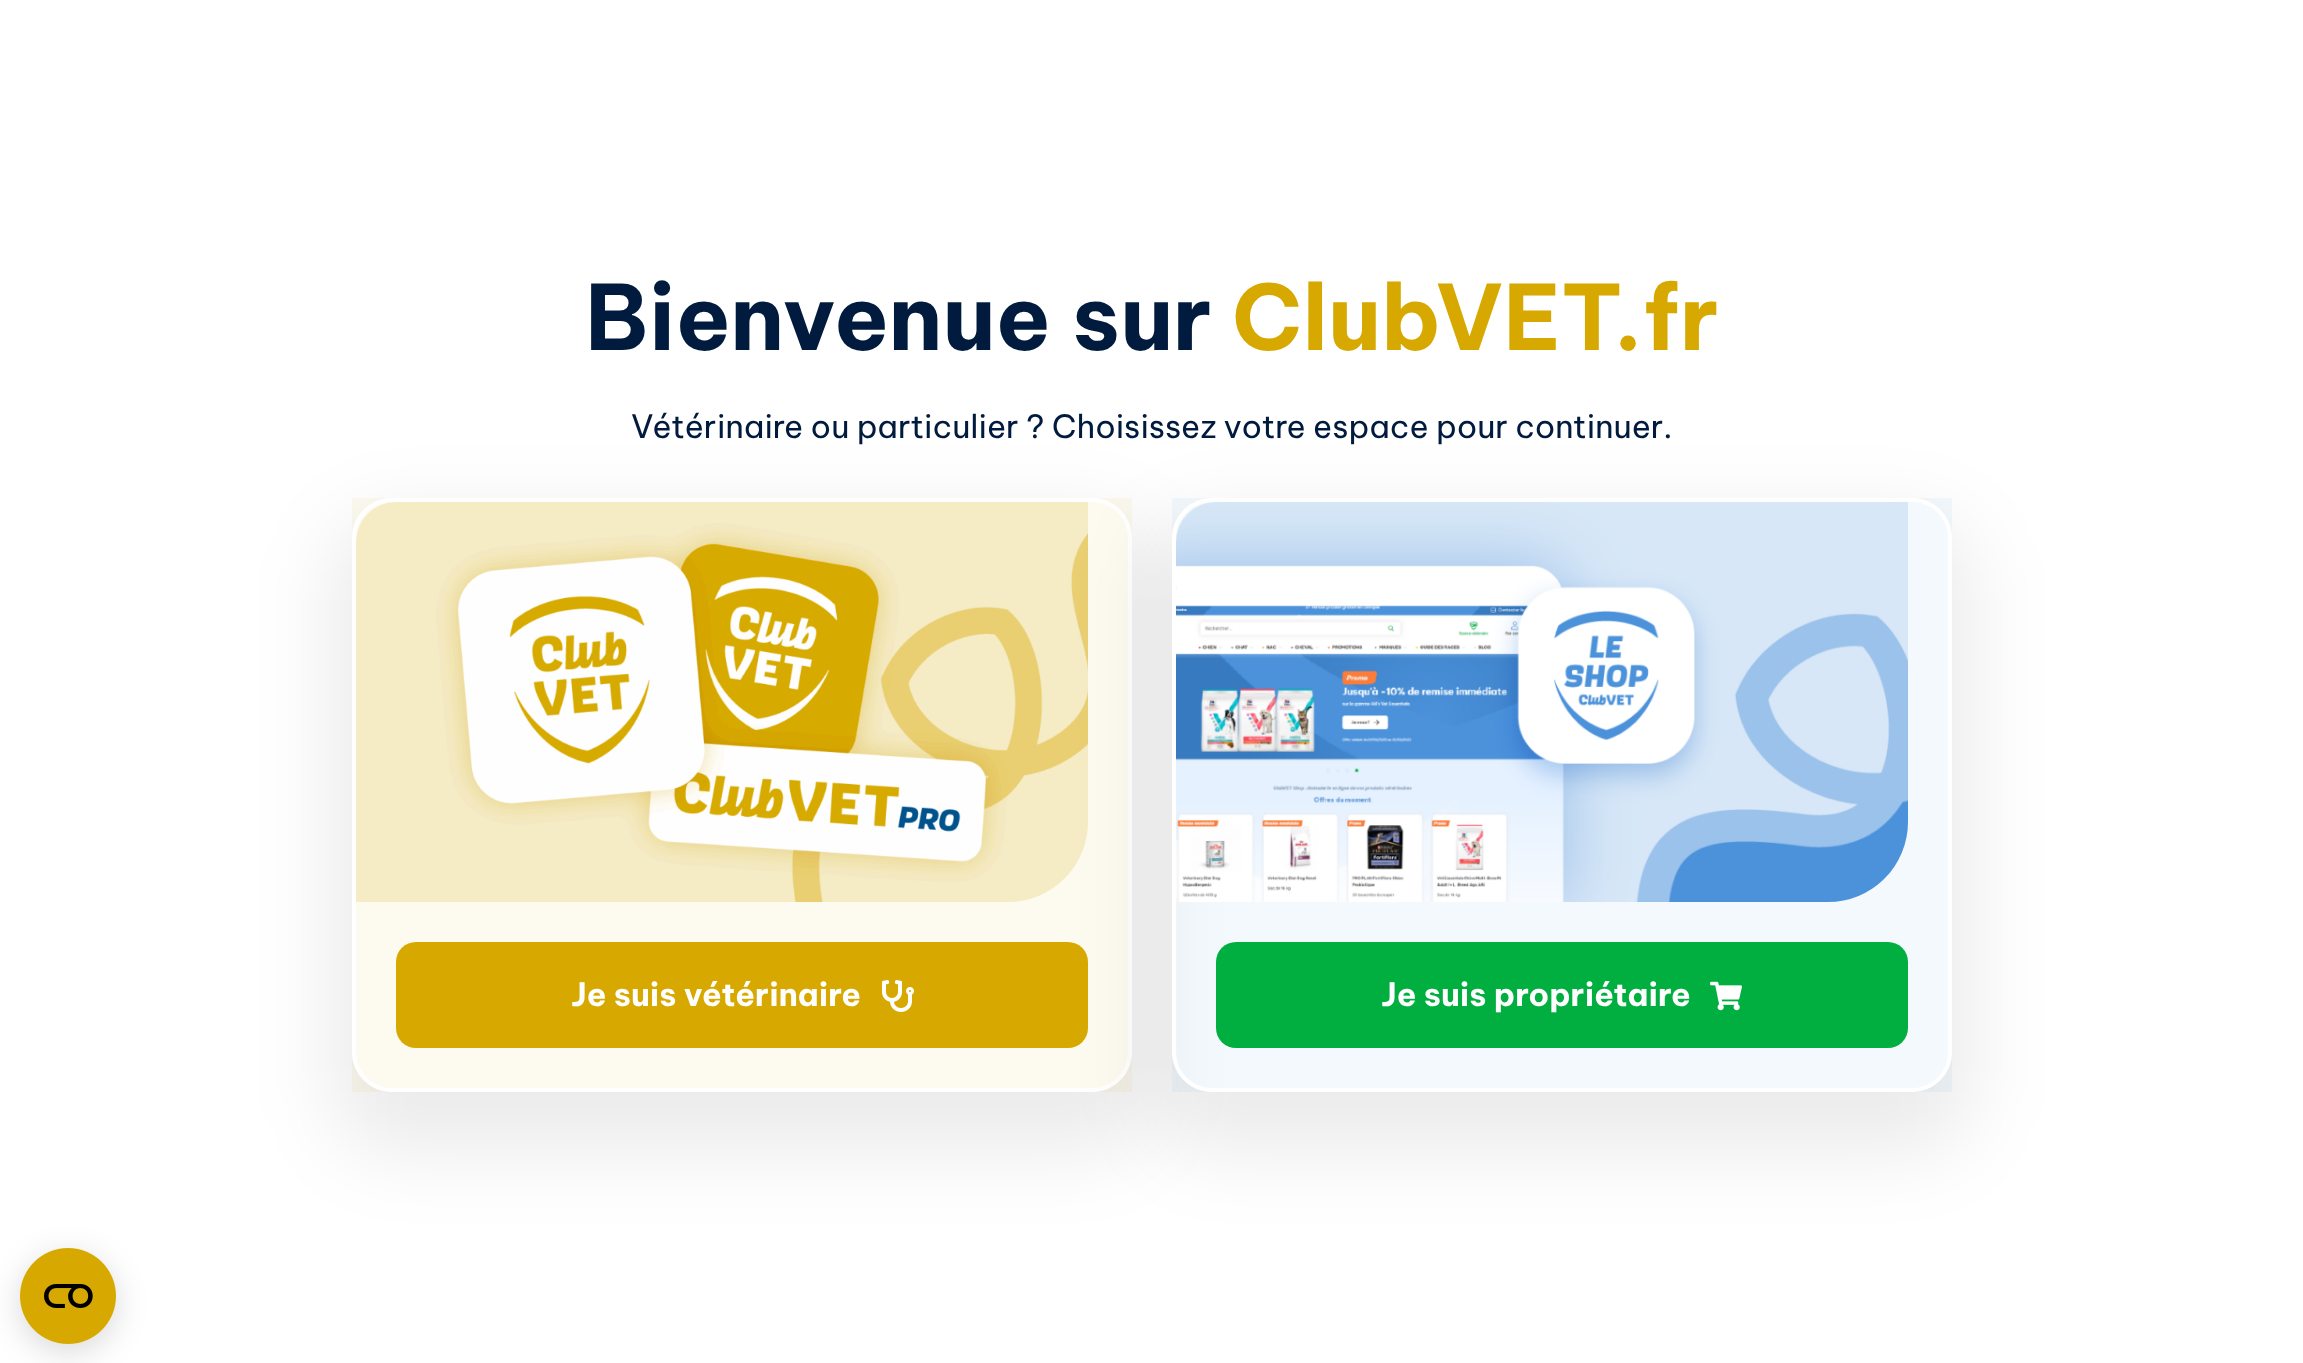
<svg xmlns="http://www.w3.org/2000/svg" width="2303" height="1363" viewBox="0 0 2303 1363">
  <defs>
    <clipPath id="clip1"><path d="M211 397H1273V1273H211ZM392 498H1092C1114 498 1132 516 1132 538V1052C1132 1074 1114 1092 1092 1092H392C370 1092 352 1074 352 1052V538C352 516 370 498 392 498Z" clip-rule="evenodd"/></clipPath>
    <filter id="blur1" x="-50%" y="-200%" width="200%" height="500%"><feGaussianBlur stdDeviation="40"/></filter>
    <clipPath id="clip2"><path d="M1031 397H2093V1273H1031ZM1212 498H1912C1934 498 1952 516 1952 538V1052C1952 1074 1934 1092 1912 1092H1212C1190 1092 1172 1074 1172 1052V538C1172 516 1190 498 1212 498Z" clip-rule="evenodd"/></clipPath>
    <filter id="blur2" x="-50%" y="-200%" width="200%" height="500%"><feGaussianBlur stdDeviation="16"/></filter>
  </defs>
  <rect width="100%" height="100%" fill="#ffffff"/>
  <text x="585" y="350" font-family="Be Vietnam Pro" font-size="90" font-weight="bold" fill="#001b3d">Bienvenue sur</text>
  <text x="1232" y="350" font-family="Be Vietnam Pro" font-size="90" font-weight="bold" fill="#d7a900">ClubVET.fr</text>
  <text x="631" y="438" font-family="Be Vietnam Pro" font-size="32" fill="#001b3d">Vétérinaire ou particulier ? Choisissez votre espace pour continuer.</text>
  <g clip-path="url(#clip1)">
    <rect x="332" y="518" width="820" height="634" rx="60" fill="#000000" fill-opacity="0.08" filter="url(#blur1)"/>
  </g>
  <rect x="352" y="498" width="780" height="594" fill="#d7a900" fill-opacity="0.06"/>
  <rect x="354" y="500" width="776" height="590" rx="38" fill="none" stroke="#ffffff" stroke-width="4"/>
  <image x="356" y="502" width="732" height="400" href="img1.png"/>
  <rect x="396" y="942" width="692" height="106" rx="20" fill="#d7a900"/>
  <text x="571" y="1006" font-family="Be Vietnam Pro" font-size="32" font-weight="bold" fill="#ffffff">Je suis vétérinaire</text>
  <image x="882" y="980" width="32" height="32" href="img2.png"/>
  <g clip-path="url(#clip2)">
    <rect x="1152" y="518" width="820" height="634" rx="60" fill="#000000" fill-opacity="0.08" filter="url(#blur1)"/>
  </g>
  <rect x="1172" y="498" width="780" height="594" fill="#4b92db" fill-opacity="0.06"/>
  <rect x="1174" y="500" width="776" height="590" rx="38" fill="none" stroke="#ffffff" stroke-width="4"/>
  <image x="1176" y="502" width="732" height="400" href="img3.png"/>
  <rect x="1216" y="942" width="692" height="106" rx="20" fill="#00af3f"/>
  <text x="1381" y="1006" font-family="Be Vietnam Pro" font-size="32" font-weight="bold" fill="#ffffff">Je suis propriétaire</text>
  <image x="1710" y="981" width="32" height="30" href="img4.png"/>
  <rect x="20" y="1256" width="96" height="96" rx="48" fill="#000000" fill-opacity="0.15" filter="url(#blur2)"/>
  <image x="20" y="1248" width="96" height="96" href="img5.png"/>
</svg>
